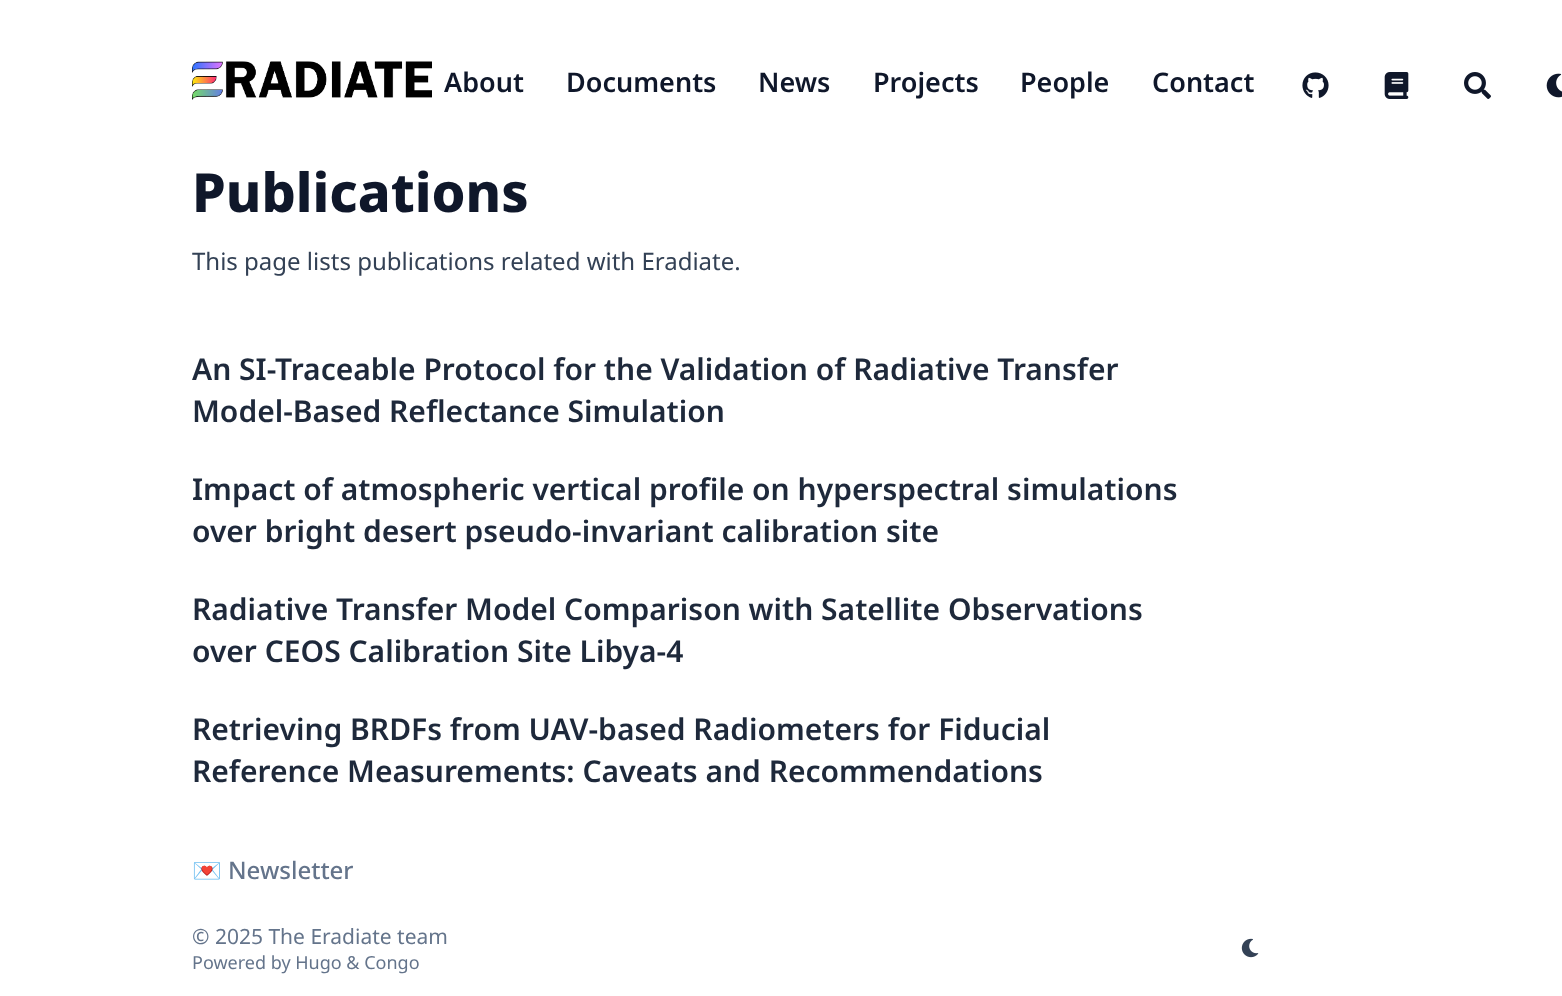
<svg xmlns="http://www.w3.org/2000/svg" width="1562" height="996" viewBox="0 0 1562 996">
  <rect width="100%" height="100%" fill="#ffffff"/>
  <image x="192" y="61" width="240" height="39" href="img1.png"/>
  <text x="444" y="92" font-family="Noto Sans" font-size="27" font-weight="600" fill="#0f172a">About</text>
  <text x="566" y="92" font-family="Noto Sans" font-size="27" font-weight="600" fill="#0f172a">Documents</text>
  <text x="758" y="92" font-family="Noto Sans" font-size="27" font-weight="600" fill="#0f172a">News</text>
  <text x="873" y="92" font-family="Noto Sans" font-size="27" font-weight="600" fill="#0f172a">Projects</text>
  <text x="1020" y="92" font-family="Noto Sans" font-size="27" font-weight="600" fill="#0f172a">People</text>
  <text x="1152" y="92" font-family="Noto Sans" font-size="27" font-weight="600" fill="#0f172a">Contact</text>
  <image x="1302" y="72" width="27" height="26" href="img2.png"/>
  <image x="1384" y="72" width="25" height="27" href="img3.png"/>
  <image x="1464" y="72" width="27" height="27" href="img4.png"/>
  <image x="1546" y="73" width="16" height="25" href="img5.png"/>
  <text x="192" y="212" font-family="Noto Sans" font-size="54" font-weight="800" fill="#0f172a">Publications</text>
  <text x="192" y="270" font-family="Noto Sans" font-size="24" fill="#334155">This page lists publications related with Eradiate.</text>
  <text x="192" y="380" font-family="Noto Sans" font-size="30" font-weight="600" fill="#1e293b">An SI-Traceable Protocol for the Validation of Radiative Transfer</text>
  <text x="192" y="422" font-family="Noto Sans" font-size="30" font-weight="600" fill="#1e293b">Model-Based Reflectance Simulation</text>
  <text x="192" y="500" font-family="Noto Sans" font-size="30" font-weight="600" fill="#1e293b">Impact of atmospheric vertical profile on hyperspectral simulations</text>
  <text x="192" y="542" font-family="Noto Sans" font-size="30" font-weight="600" fill="#1e293b">over bright desert pseudo-invariant calibration site</text>
  <text x="192" y="620" font-family="Noto Sans" font-size="30" font-weight="600" fill="#1e293b">Radiative Transfer Model Comparison with Satellite Observations</text>
  <text x="192" y="662" font-family="Noto Sans" font-size="30" font-weight="600" fill="#1e293b">over CEOS Calibration Site Libya-4</text>
  <text x="192" y="740" font-family="Noto Sans" font-size="30" font-weight="600" fill="#1e293b">Retrieving BRDFs from UAV-based Radiometers for Fiducial</text>
  <text x="192" y="782" font-family="Noto Sans" font-size="30" font-weight="600" fill="#1e293b">Reference Measurements: Caveats and Recommendations</text>
  <text x="192" y="879" font-family="Noto Color Emoji" font-size="24" fill="#64748b">💌</text>
  <text x="228" y="879" font-family="Noto Sans" font-size="24" font-weight="500" fill="#64748b">Newsletter</text>
  <text x="192" y="944" font-family="Noto Sans" font-size="21" fill="#64748b">© 2025 The Eradiate team</text>
  <text x="192" y="969" font-family="Noto Sans" font-size="18" fill="#64748b">Powered by Hugo &amp; Congo</text>
  <image x="1241" y="938" width="18" height="20" href="img6.png"/>
</svg>
